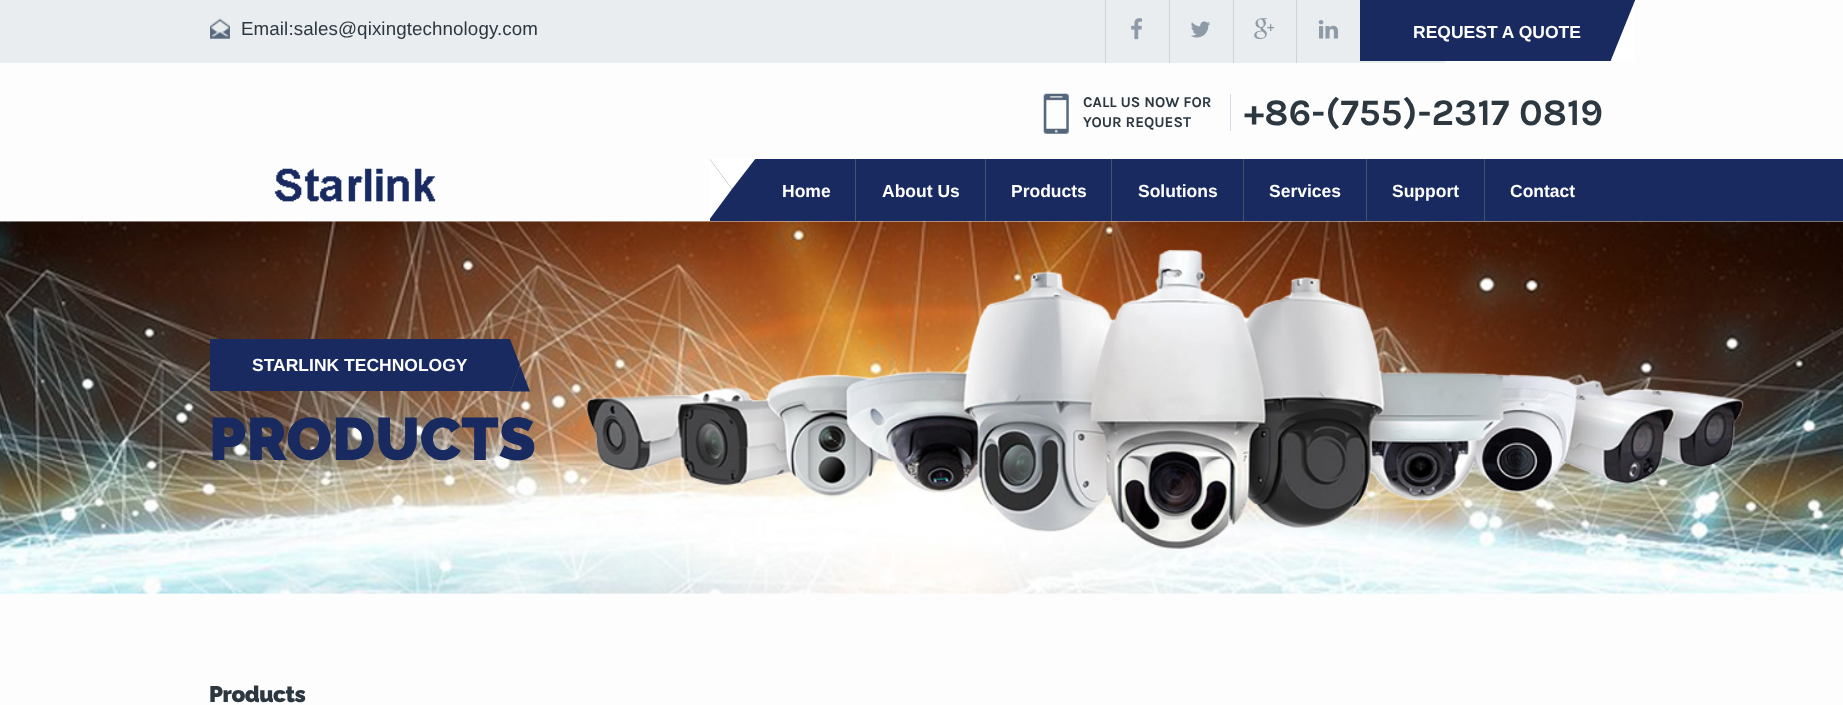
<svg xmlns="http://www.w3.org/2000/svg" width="1843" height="705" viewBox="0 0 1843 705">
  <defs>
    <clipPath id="clip1"><rect x="1360" y="0" width="275" height="61"/></clipPath>
  </defs>
  <rect width="100%" height="100%" fill="#fdfdfd"/>
  <rect x="0" y="0" width="1445" height="63" fill="#eaedf0"/>
  <image x="210" y="18" width="20" height="21" href="img1.png"/>
  <text x="241" y="35" font-family="Liberation Sans" font-size="18.75" letter-spacing="0.1" fill="#2c3740">Email:sales@qixingtechnology.com</text>
  <rect x="1105" y="0" width="1" height="63" fill="#cdd4da"/>
  <image x="1131" y="18" width="11" height="22" href="img2.png"/>
  <rect x="1169" y="0" width="1" height="63" fill="#cdd4da"/>
  <image x="1190" y="21" width="21" height="17" href="img3.png"/>
  <rect x="1233" y="0" width="1" height="63" fill="#cdd4da"/>
  <image x="1254" y="18" width="20" height="22" href="img4.png"/>
  <rect x="1296" y="0" width="1" height="63" fill="#cdd4da"/>
  <image x="1318" y="20" width="20" height="19" href="img5.png"/>
  <rect x="1360" y="0" width="275" height="61" fill="#182a60"/>
  <text x="1413" y="38" font-family="Liberation Sans" font-size="17.5" font-weight="bold" fill="#ffffff">REQUEST A QUOTE</text>
  <g clip-path="url(#clip1)">
    <path d="M1636-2V122L1611 60Z" fill="#ffffff"/>
    <path d="M1636 122H1586L1611 60Z" fill="#ffffff"/>
  </g>
  <image x="1043" y="93" width="26" height="41" href="img6.png"/>
  <text x="1083" y="107" font-family="Karla" font-size="15" font-weight="bold" fill="#2c3740">CALL US NOW FOR</text>
  <text x="1083" y="127" font-family="Karla" font-size="15" font-weight="bold" fill="#2c3740">YOUR REQUEST</text>
  <rect x="1230" y="94" width="1" height="37" fill="#d5dce4"/>
  <text x="1244" y="125" font-family="Karla" font-size="37.5" font-weight="bold" fill="#2c3740">+86-(755)-2317 0819</text>
  <image x="274" y="168" width="162" height="34" href="img7.png"/>
  <rect x="710" y="159" width="1133" height="62" fill="#182a60"/>
  <path d="M709 158H756L732 189Z" fill="#ffffff"/>
  <path d="M709 220V158L732 189Z" fill="#ffffff"/>
  <text x="782" y="197" font-family="Liberation Sans" font-size="17.5" font-weight="bold" fill="#ffffff">Home</text>
  <rect x="855" y="159" width="1" height="62" fill="#405667"/>
  <text x="882" y="197" font-family="Liberation Sans" font-size="17.5" font-weight="bold" fill="#ffffff">About Us</text>
  <rect x="985" y="159" width="1" height="62" fill="#405667"/>
  <text x="1011" y="197" font-family="Liberation Sans" font-size="17.5" font-weight="bold" fill="#ffffff">Products</text>
  <rect x="1111" y="159" width="1" height="62" fill="#405667"/>
  <text x="1138" y="197" font-family="Liberation Sans" font-size="17.5" font-weight="bold" fill="#ffffff">Solutions</text>
  <rect x="1243" y="159" width="1" height="62" fill="#405667"/>
  <text x="1269" y="197" font-family="Liberation Sans" font-size="17.5" font-weight="bold" fill="#ffffff">Services</text>
  <rect x="1366" y="159" width="1" height="62" fill="#405667"/>
  <text x="1392" y="197" font-family="Liberation Sans" font-size="17.5" font-weight="bold" fill="#ffffff">Support</text>
  <rect x="1484" y="159" width="1" height="62" fill="#405667"/>
  <text x="1510" y="197" font-family="Liberation Sans" font-size="17.5" font-weight="bold" fill="#ffffff">Contact</text>
  <image x="0" y="221" width="1843" height="373" href="img8.png"/>
  <rect x="210" y="339" width="300" height="52" fill="#182a60"/>
  <text x="252" y="371" font-family="Liberation Sans" font-size="17.5" font-weight="bold" fill="#ffffff">STARLINK TECHNOLOGY</text>
  <path d="M530 391.5H510L520 365.5Z" fill="#182a60"/>
  <path d="M510 392V339L520 365Z" fill="#182a60"/>
  <text x="209" y="460" font-family="Raleway" font-size="60" font-weight="900" fill="#182a60">PRODUCTS</text>
  <text x="209" y="702" font-family="Raleway" font-size="22.5" font-weight="900" letter-spacing="-0.5" fill="#2c3740">Products</text>
</svg>
